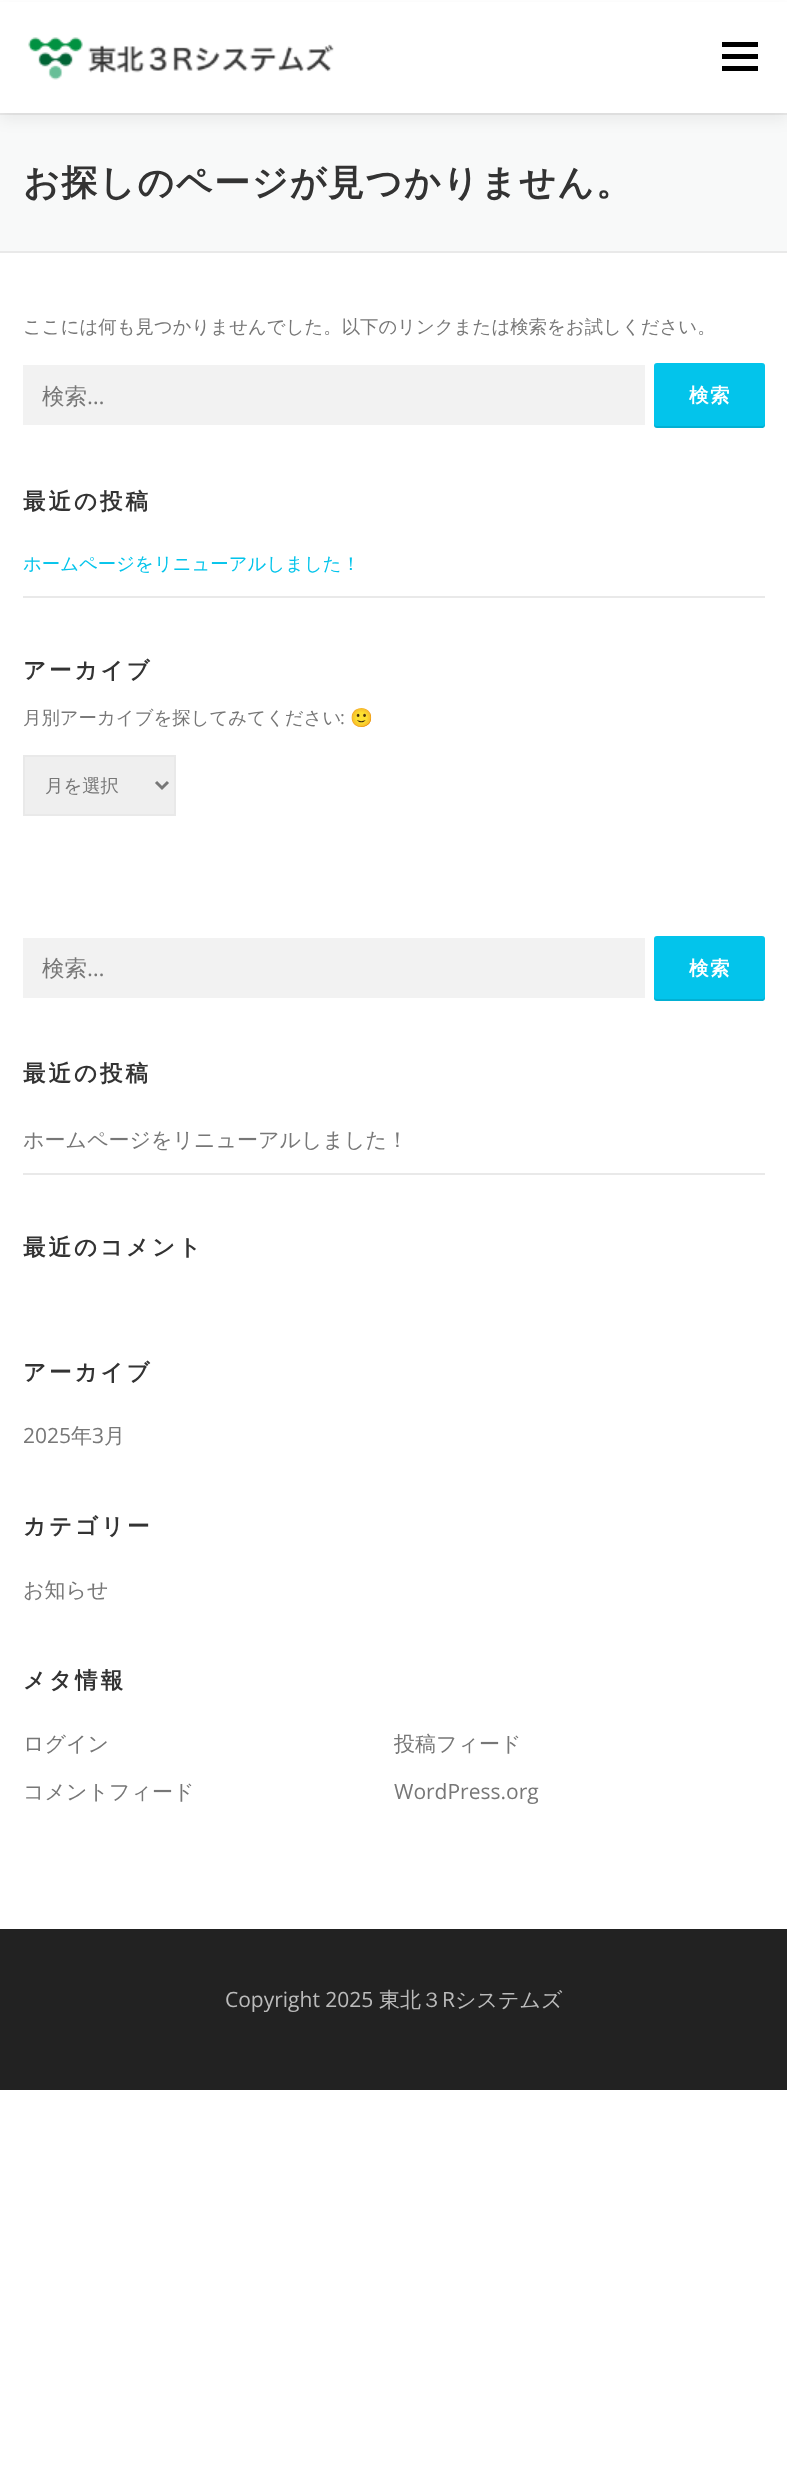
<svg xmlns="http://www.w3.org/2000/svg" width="787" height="2492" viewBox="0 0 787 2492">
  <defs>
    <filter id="blur1" x="-50%" y="-200%" width="200%" height="500%"><feGaussianBlur stdDeviation="7.5"/></filter>
  </defs>
  <rect width="100%" height="100%" fill="#ffffff"/>
  <rect x="0" y="115" width="787" height="136" fill="#f8f9f9"/>
  <rect x="0" y="113" width="787" height="2" fill="#e9e9e9"/>
  <rect x="0" y="8" width="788" height="112" fill="#323232" fill-opacity="0.06" filter="url(#blur1)"/>
  <rect x="0" y="2" width="787" height="111" fill="#ffffff"/>
  <image x="28" y="37" width="306" height="43" href="img1.png"/>
  <rect x="722" y="54" width="36" height="5" fill="#000000"/>
  <rect x="722" y="42" width="36" height="5" fill="#000000"/>
  <rect x="722" y="66" width="36" height="5" fill="#000000"/>
  <rect x="0" y="251" width="787" height="2" fill="#e9e9e9"/>
  <text x="23" y="195" font-family="WenQuanYi Zen Hei" font-size="36" font-weight="bold" letter-spacing="1.5" fill="#333333">お探しのページが見つかりません。</text>
  <text x="23" y="333" font-family="WenQuanYi Zen Hei" font-size="18.4" font-weight="500" fill="#777777">ここには何も見つかりませんでした。以下のリンクまたは検索をお試しください。</text>
  <rect x="23" y="365" width="622" height="60" fill="#f2f2f2"/>
  <text x="42" y="404" font-family="WenQuanYi Zen Hei" font-size="22.5" font-weight="500" fill="#777777">検索</text>
  <text x="87" y="404" font-family="Open Sans" font-size="22.5" fill="#777777">…</text>
  <rect x="654" y="363" width="111" height="65" rx="3" fill="#03c4eb"/>
  <path d="M654 423V425C654 427 655 428 657 428H762C764 428 765 427 765 425V423C765 425 764 426 762 426H657C655 426 654 425 654 423Z" fill="#000000" fill-opacity="0.1"/>
  <text x="689" y="402" font-family="WenQuanYi Zen Hei" font-size="19.5" font-weight="bold" letter-spacing="1.5" fill="#ffffff">検索</text>
  <text x="23" y="509" font-family="WenQuanYi Zen Hei" font-size="22.5" font-weight="bold" letter-spacing="3" fill="#333333">最近の投稿</text>
  <rect x="23" y="596" width="742" height="2" fill="#e9e9e9"/>
  <text x="23" y="570" font-family="WenQuanYi Zen Hei" font-size="18.4" font-weight="500" fill="#03c4eb">ホームページをリニューアルしました！</text>
  <text x="23" y="678" font-family="WenQuanYi Zen Hei" font-size="22.5" font-weight="bold" letter-spacing="3" fill="#333333">アーカイブ</text>
  <text x="23" y="724" font-family="WenQuanYi Zen Hei" font-size="18.4" font-weight="500" fill="#777777">月別アーカイブを探してみてください</text>
  <text x="340" y="724" font-family="Open Sans" font-size="18.4" fill="#777777">:</text>
  <text x="350" y="724" font-family="Noto Color Emoji" font-size="18.4" fill="#777777">🙂</text>
  <rect x="24" y="756" width="151" height="59" fill="#efefef" stroke="#e9e9e9" stroke-width="2"/>
  <path d="M156 782L162 788L168 782" fill="none" stroke="#777777" stroke-width="3"/>
  <text x="45" y="792" font-family="WenQuanYi Zen Hei" font-size="18.4" font-weight="500" fill="#777777">月を選択</text>
  <rect x="23" y="938" width="622" height="60" fill="#f2f2f2"/>
  <text x="42" y="976" font-family="WenQuanYi Zen Hei" font-size="22.5" font-weight="500" fill="#777777">検索</text>
  <text x="87" y="976" font-family="Open Sans" font-size="22.5" fill="#777777">…</text>
  <rect x="654" y="936" width="111" height="65" rx="3" fill="#03c4eb"/>
  <path d="M654 996V998C654 1000 655 1001 657 1001H762C764 1001 765 1000 765 998V996C765 998 764 999 762 999H657C655 999 654 998 654 996Z" fill="#000000" fill-opacity="0.1"/>
  <text x="689" y="975" font-family="WenQuanYi Zen Hei" font-size="19.5" font-weight="bold" letter-spacing="1.5" fill="#ffffff">検索</text>
  <text x="23" y="1081" font-family="WenQuanYi Zen Hei" font-size="22.5" font-weight="bold" letter-spacing="3" fill="#333333">最近の投稿</text>
  <rect x="23" y="1173" width="742" height="2" fill="#e9e9e9"/>
  <text x="23" y="1147" font-family="WenQuanYi Zen Hei" font-size="21" font-weight="500" fill="#777777">ホームページをリニューアルしました！</text>
  <text x="23" y="1255" font-family="WenQuanYi Zen Hei" font-size="22.5" font-weight="bold" letter-spacing="3" fill="#333333">最近のコメント</text>
  <text x="23" y="1380" font-family="WenQuanYi Zen Hei" font-size="22.5" font-weight="bold" letter-spacing="3" fill="#333333">アーカイブ</text>
  <text x="23" y="1443" font-family="Open Sans" font-size="21" fill="#777777">2025</text>
  <text x="71" y="1443" font-family="WenQuanYi Zen Hei" font-size="21" font-weight="500" fill="#777777">年</text>
  <text x="92" y="1443" font-family="Open Sans" font-size="21" fill="#777777">3</text>
  <text x="104" y="1443" font-family="WenQuanYi Zen Hei" font-size="21" font-weight="500" fill="#777777">月</text>
  <text x="23" y="1534" font-family="WenQuanYi Zen Hei" font-size="22.5" font-weight="bold" letter-spacing="3" fill="#333333">カテゴリー</text>
  <text x="23" y="1597" font-family="WenQuanYi Zen Hei" font-size="21" font-weight="500" fill="#777777">お知らせ</text>
  <text x="23" y="1688" font-family="WenQuanYi Zen Hei" font-size="22.5" font-weight="bold" letter-spacing="3" fill="#333333">メタ情報</text>
  <text x="23" y="1751" font-family="WenQuanYi Zen Hei" font-size="21" font-weight="500" fill="#777777">ログイン</text>
  <text x="394" y="1751" font-family="WenQuanYi Zen Hei" font-size="21" font-weight="500" fill="#777777">投稿フィード</text>
  <text x="23" y="1799" font-family="WenQuanYi Zen Hei" font-size="21" font-weight="500" fill="#777777">コメントフィード</text>
  <text x="394" y="1799" font-family="Open Sans" font-size="21" fill="#777777">WordPress.org</text>
  <rect x="0" y="1929" width="787" height="161" fill="#222222"/>
  <text x="225" y="2007" font-family="Open Sans" font-size="21" fill="#bbbbbb">Copyright 2025</text>
  <text x="379" y="2007" font-family="WenQuanYi Zen Hei" font-size="21" font-weight="500" fill="#bbbbbb">東北３</text>
  <text x="442" y="2007" font-family="Open Sans" font-size="21" fill="#bbbbbb">R</text>
  <text x="455" y="2007" font-family="WenQuanYi Zen Hei" font-size="21" font-weight="500" fill="#bbbbbb">システムズ</text>
</svg>
